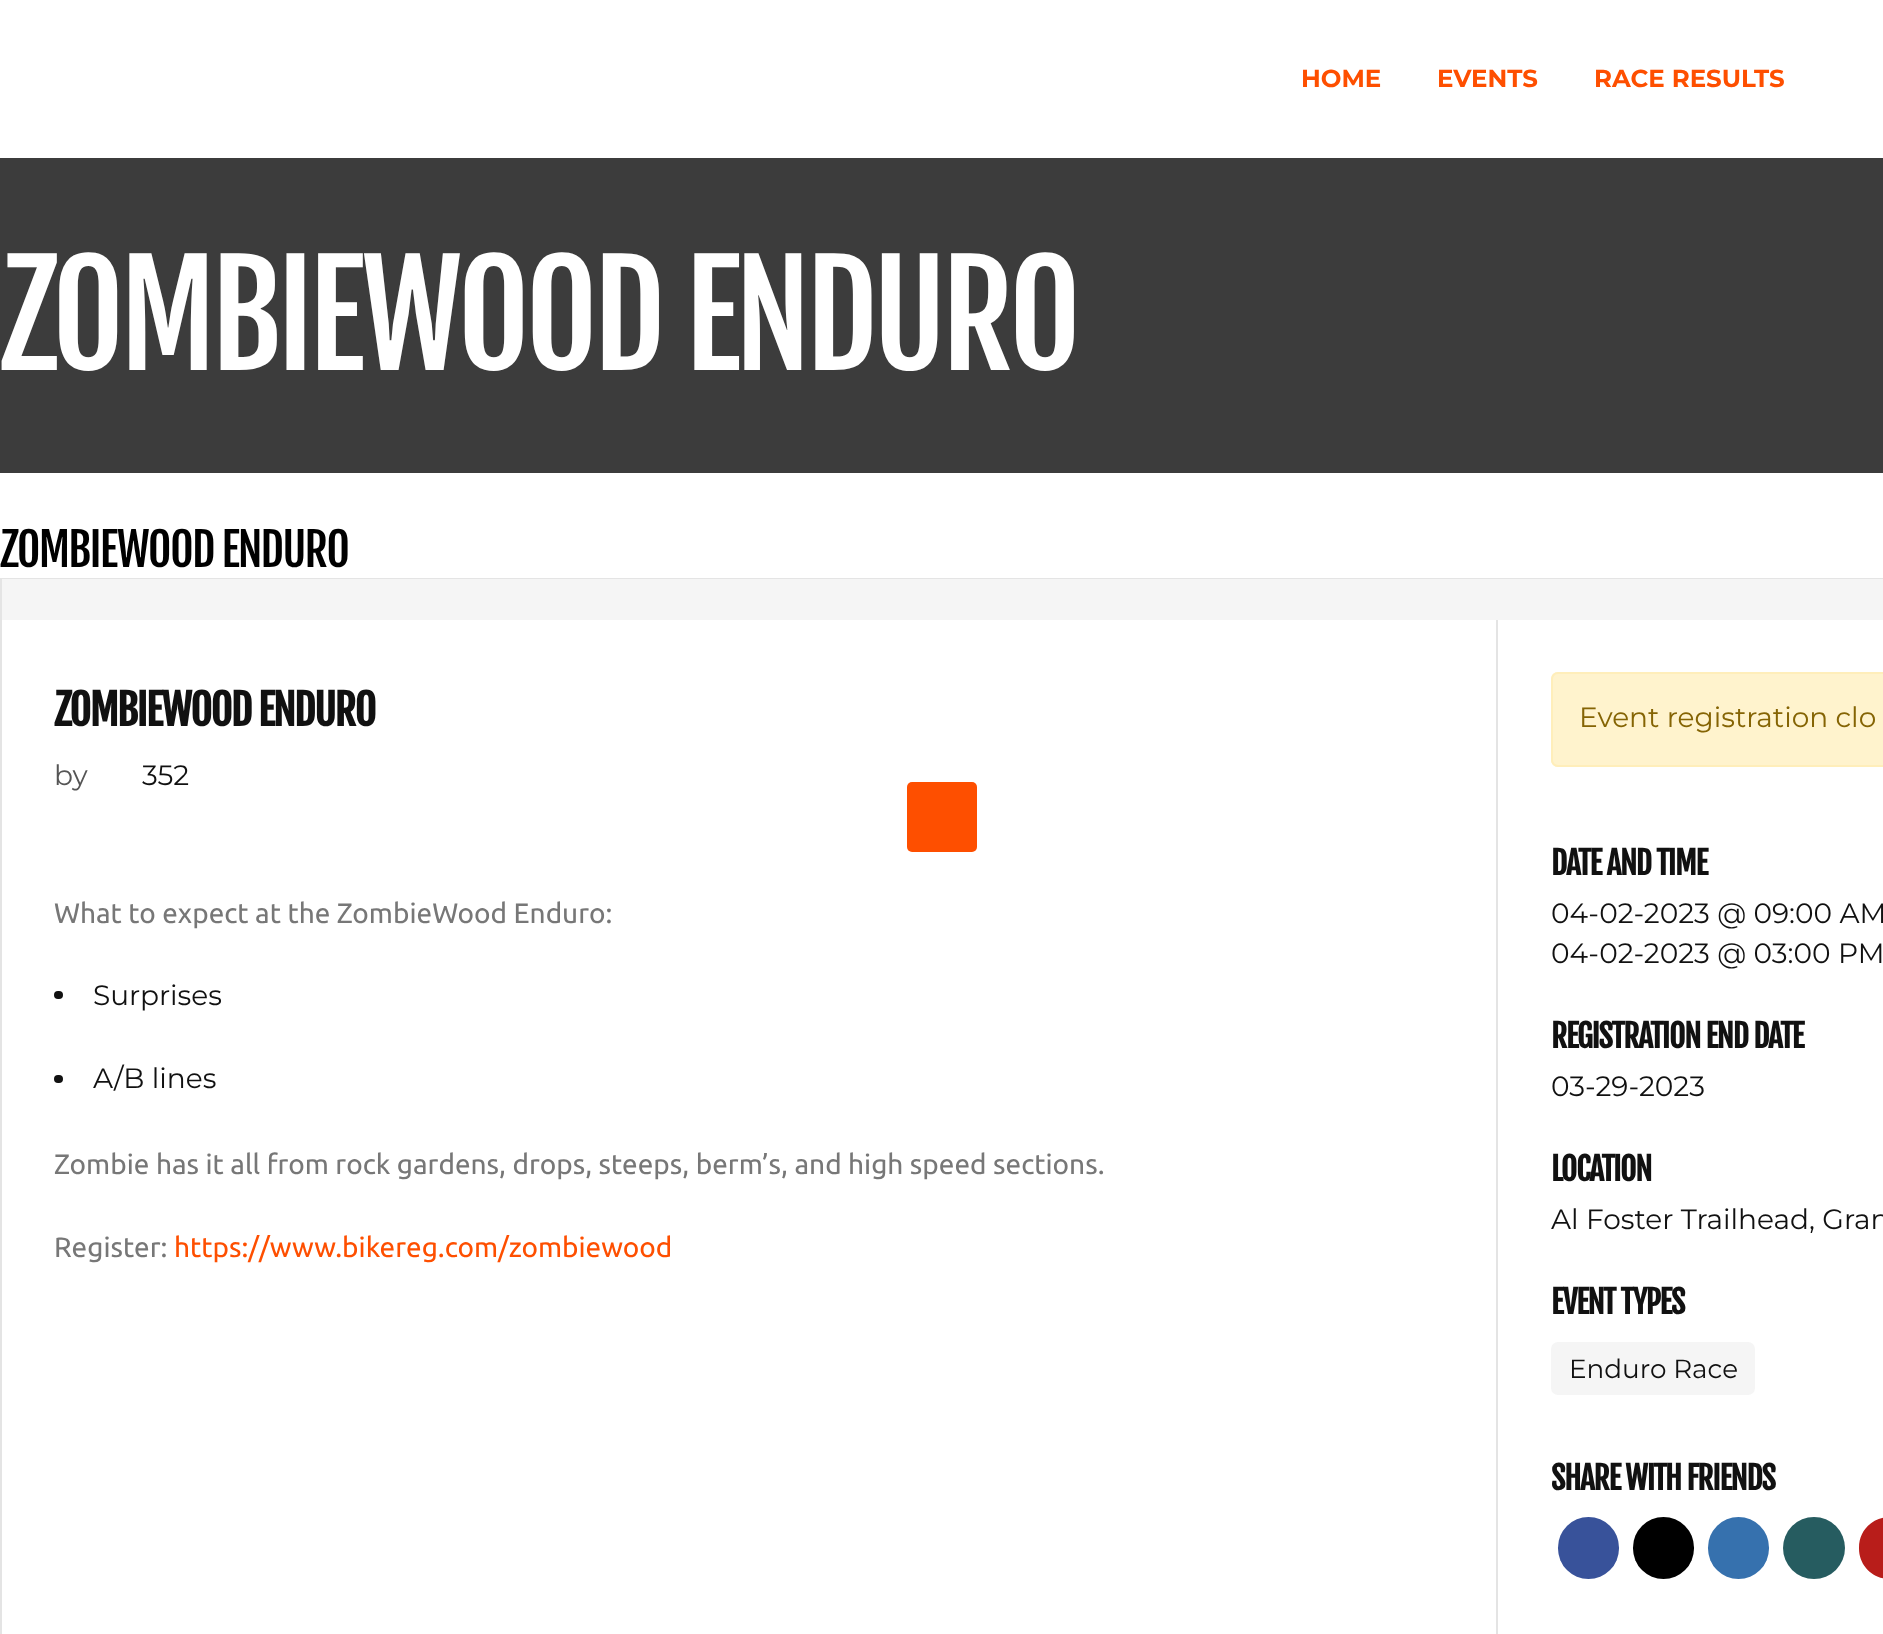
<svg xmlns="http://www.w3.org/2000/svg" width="1883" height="1634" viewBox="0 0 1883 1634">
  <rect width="100%" height="100%" fill="#ffffff"/>
  <text x="1301" y="87" font-family="Montserrat" font-size="24.5" font-weight="bold" fill="#fe4f00">HOME</text>
  <text x="1437" y="87" font-family="Montserrat" font-size="24.5" font-weight="bold" fill="#fe4f00">EVENTS</text>
  <text x="1594" y="87" font-family="Montserrat" font-size="24.5" font-weight="bold" fill="#fe4f00">RACE RESULTS</text>
  <rect x="0" y="158" width="1883" height="315" fill="#3c3c3c"/>
  <text x="0" y="370" font-family="Fjalla One" font-size="140" letter-spacing="-5.25" fill="#ffffff">ZOMBIEWOOD ENDURO</text>
  <text x="0" y="567" font-family="Fjalla One" font-size="45.5" letter-spacing="-1.8" fill="#000000">ZOMBIEWOOD ENDURO</text>
  <rect x="1" y="579" width="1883" height="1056" fill="none" stroke="#e4e4e4" stroke-width="2"/>
  <rect x="2" y="579" width="1881" height="41" fill="#f5f5f5"/>
  <text x="54" y="726" font-family="Fjalla One" font-size="42" font-weight="bold" letter-spacing="-1.7" fill="#111111">ZOMBIEWOOD ENDURO</text>
  <text x="54" y="785" font-family="Montserrat" font-size="28" fill="#555555">by</text>
  <text x="142" y="785" font-family="Montserrat" font-size="28" fill="#111111">352</text>
  <rect x="1496" y="620" width="2" height="1014" fill="#e4e4e4"/>
  <text x="54" y="923" font-family="Ubuntu" font-size="28" fill="#777777">What to expect at the ZombieWood Enduro:</text>
  <rect x="54" y="991" width="9" height="8" rx="4" fill="#111111"/>
  <text x="93" y="1005" font-family="Montserrat" font-size="28" fill="#111111">Surprises</text>
  <rect x="54" y="1075" width="9" height="8" rx="4" fill="#111111"/>
  <text x="93" y="1088" font-family="Montserrat" font-size="28" fill="#111111">A/B lines</text>
  <text x="54" y="1174" font-family="Ubuntu" font-size="28" fill="#777777">Zombie has it all from rock gardens, drops, steeps, berm’s, and high speed sections.</text>
  <text x="54" y="1257" font-family="Ubuntu" font-size="28" fill="#777777">Register:</text>
  <text x="174" y="1257" font-family="Ubuntu" font-size="28" fill="#fe4f00">https://www.bikereg.com/zombiewood</text>
  <path d="M1558 672H1883V767H1558C1554 767 1551 764 1551 760V679C1551 675 1554 672 1558 672Z" fill="#fff3cd"/>
  <rect x="1552" y="673" width="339" height="93" rx="6" fill="none" stroke="#ffeeba" stroke-width="2"/>
  <text x="1579" y="727" font-family="Montserrat" font-size="28" fill="#856404">Event registration clo</text>
  <text x="1551" y="875" font-family="Fjalla One" font-size="31.5" font-weight="bold" letter-spacing="-1.25" fill="#111111">DATE AND TIME</text>
  <text x="1551" y="923" font-family="Montserrat" font-size="28" fill="#111111">04-02-2023 @ 09:00 AM</text>
  <text x="1551" y="963" font-family="Montserrat" font-size="28" fill="#111111">04-02-2023 @ 03:00 PM</text>
  <text x="1551" y="1048" font-family="Fjalla One" font-size="31.5" font-weight="bold" letter-spacing="-1.25" fill="#111111">REGISTRATION END DATE</text>
  <text x="1551" y="1096" font-family="Montserrat" font-size="28" fill="#111111">03-29-2023</text>
  <text x="1551" y="1181" font-family="Fjalla One" font-size="31.5" font-weight="bold" letter-spacing="-1.25" fill="#111111">LOCATION</text>
  <text x="1551" y="1229" font-family="Montserrat" font-size="28" fill="#111111">Al Foster Trailhead, Gran</text>
  <text x="1551" y="1314" font-family="Fjalla One" font-size="31.5" font-weight="bold" letter-spacing="-1.25" fill="#111111">EVENT TYPES</text>
  <rect x="1551" y="1342" width="204" height="53" rx="7" fill="#f5f5f5"/>
  <text x="1569" y="1378" font-family="Montserrat" font-size="26.25" fill="#111111">Enduro Race</text>
  <text x="1551" y="1490" font-family="Fjalla One" font-size="31.5" font-weight="bold" letter-spacing="-1.25" fill="#111111">SHARE WITH FRIENDS</text>
  <rect x="1558" y="1517" width="61" height="62" rx="30.5" fill="#38529a"/>
  <rect x="1633" y="1517" width="61" height="62" rx="30.5" fill="#000000"/>
  <rect x="1708" y="1517" width="61" height="62" rx="30.5" fill="#3671ae"/>
  <circle cx="1814" cy="1548" r="31" fill="#265c60"/>
  <path d="M1889.5 1517H1883V1579H1889.5C1872.5 1579 1859 1565.5 1859 1548.5V1547.5C1859 1530.5 1872.5 1517 1889.5 1517Z" fill="#b81d1a"/>
  <rect x="907" y="782" width="70" height="70" rx="5" fill="#fe4f00"/>
</svg>
